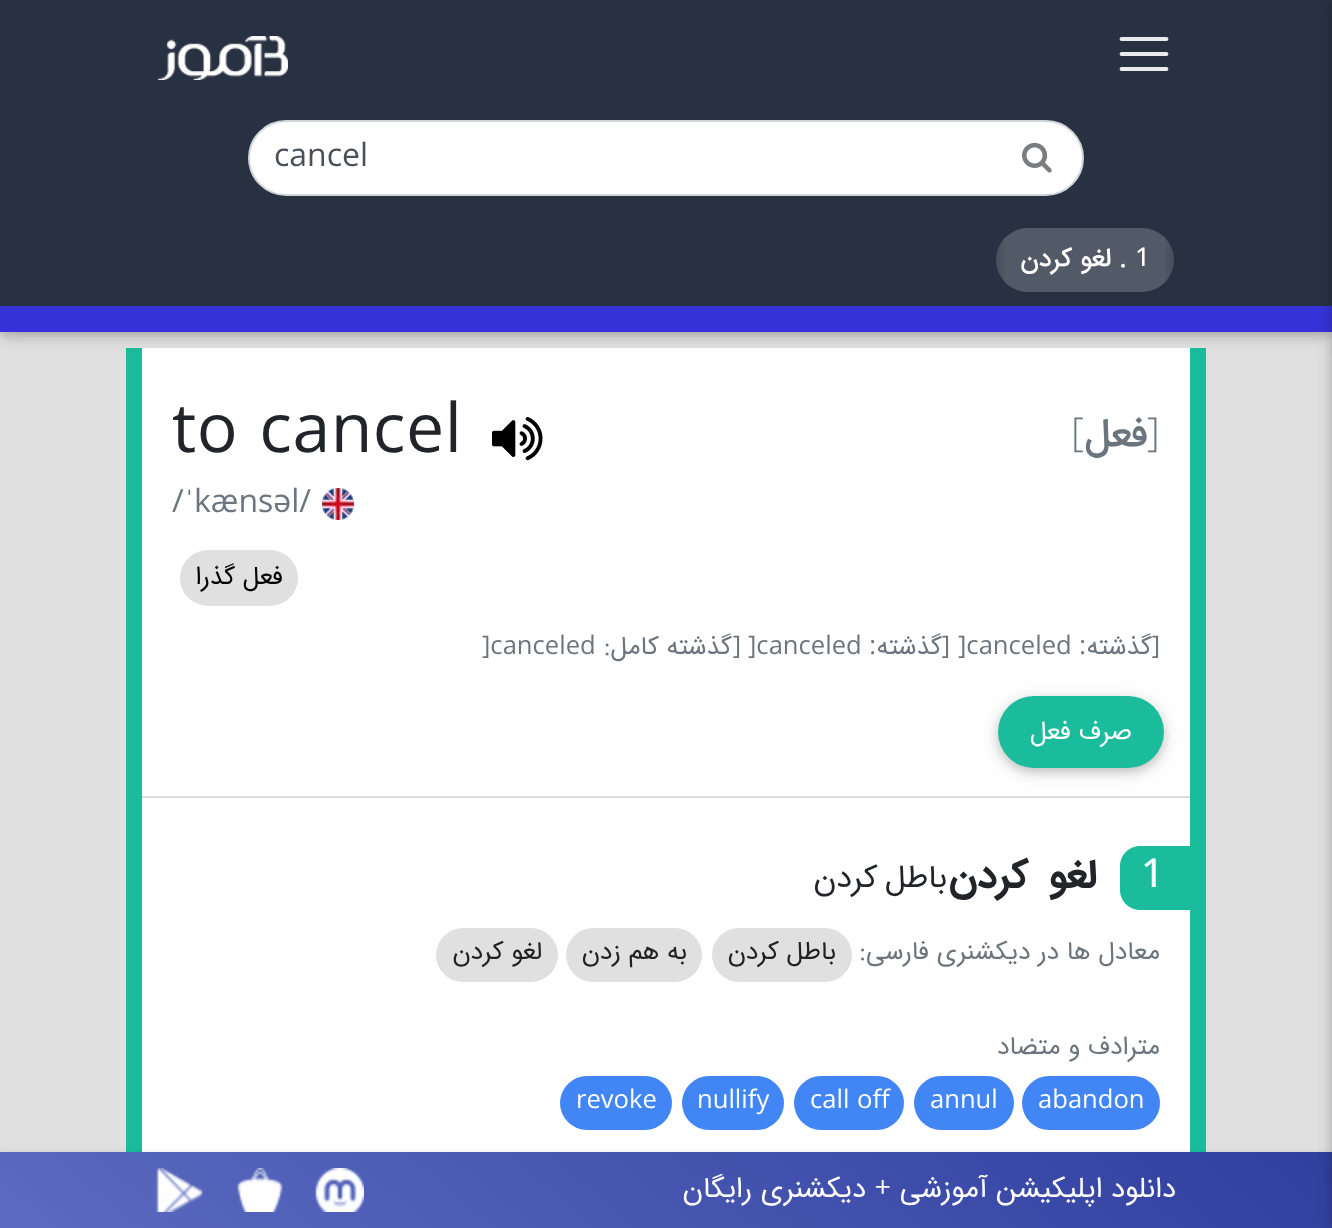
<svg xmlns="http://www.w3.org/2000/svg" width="1332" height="1228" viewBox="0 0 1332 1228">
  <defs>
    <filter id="blur1" x="-50%" y="-200%" width="200%" height="500%"><feGaussianBlur stdDeviation="10"/></filter>
    <filter id="blur2" x="-50%" y="-200%" width="200%" height="500%"><feGaussianBlur stdDeviation="5"/></filter>
    <linearGradient id="g1" gradientUnits="userSpaceOnUse" x1="372" y1="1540" x2="960" y2="840"><stop offset="0" stop-color="#5c6bc0"/><stop offset="1" stop-color="#303f9f"/></linearGradient>
    <linearGradient id="g2" gradientUnits="userSpaceOnUse" x1="1162" y1="260" x2="1206" y2="260"><stop offset="0" stop-color="#283141" stop-opacity="0"/><stop offset="1" stop-color="#283141"/></linearGradient>
    <linearGradient id="g3" gradientUnits="userSpaceOnUse" x1="964" y1="260" x2="1008" y2="260"><stop offset="0" stop-color="#283141"/><stop offset="1" stop-color="#283141" stop-opacity="0"/></linearGradient>
  </defs>
  <rect width="100%" height="100%" fill="#e0e0e0"/>
  <rect x="126" y="348" width="1080" height="804" fill="#1abc9c"/>
  <rect x="142" y="348" width="1048" height="448" fill="#ffffff"/>
  <rect x="0" y="4" width="1332" height="332" fill="#000000" fill-opacity="0.12" filter="url(#blur1)"/>
  <rect x="0" y="4" width="1332" height="332" fill="#000000" fill-opacity="0.16" filter="url(#blur2)"/>
  <rect x="0" y="0" width="1332" height="306" fill="#283142"/>
  <rect x="0" y="306" width="1332" height="26" fill="#3533d7"/>
  <rect x="142" y="798" width="1048" height="354" fill="#ffffff"/>
  <rect x="0" y="1154" width="1332" height="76" fill="#000000" fill-opacity="0.12" filter="url(#blur2)"/>
  <rect x="0" y="1152" width="1332" height="76" fill="url(#g1)"/>
  <rect x="1332" y="4" width="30" height="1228" fill="#000000" fill-opacity="0.12" filter="url(#blur1)"/>
  <rect x="1332" y="4" width="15" height="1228" fill="#000000" fill-opacity="0.16" filter="url(#blur2)"/>
  <path d="M1121.5 39H1166.5M1121.5 54H1166.5M1121.5 69H1166.5" fill="none" stroke="#eaeaec" stroke-width="3.8" stroke-linecap="round"/>
  <image x="158" y="36" width="130" height="44" href="img1.png"/>
  <rect x="249" y="121" width="834" height="74" rx="37" fill="#ffffff" stroke="#ced4da" stroke-width="2"/>
  <image x="1022" y="142" width="30" height="31" href="img2.png"/>
  <text x="274" y="166" font-family="Open Sans" font-size="32" fill="#495057">cancel</text>
  <rect x="996" y="228" width="178" height="64" rx="32" fill="#525967"/>
  <rect x="1165" y="239" width="9" height="42" fill="url(#g2)"/>
  <text x="1135" y="266" font-family="Open Sans" font-size="26" font-weight="500" fill="#ffffff">1</text>
  <text x="1127" y="266" font-family="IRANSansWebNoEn" font-size="26" font-weight="500" direction="rtl" fill="#ffffff">. لغو کردن</text>
  <rect x="996" y="239" width="9" height="42" fill="url(#g3)"/>
  <text x="1147" y="446" font-family="Open Sans" font-size="40" font-weight="300" letter-spacing="0.5" fill="#6c757d">]</text>
  <text x="1148" y="446" font-family="IRANSansWebNoEn" font-size="40" font-weight="500" letter-spacing="0.5" direction="rtl" fill="#6c757d">فعل</text>
  <text x="1071" y="446" font-family="Open Sans" font-size="40" font-weight="300" letter-spacing="0.5" fill="#6c757d">[</text>
  <image x="492" y="417" width="51" height="44" href="img3.png"/>
  <text x="172" y="452" word-spacing="3" font-family="Open Sans" font-size="68" letter-spacing="0.5" fill="#212529">to cancel</text>
  <image x="322" y="488" width="32" height="32" href="img4.png"/>
  <text x="194" y="512" font-family="Open Sans" font-size="32" fill="#6c757d">kænsəl/</text>
  <text x="184" y="512" font-family="Liberation Serif" font-size="32" fill="#6c757d">ˈ</text>
  <text x="172" y="512" font-family="Open Sans" font-size="32" fill="#6c757d">/</text>
  <rect x="180" y="550" width="118" height="56" rx="28" fill="#e0e0e0"/>
  <text x="283" y="584" font-family="IRANSansWebNoEn" font-size="25.6" direction="rtl" fill="#000000">فعل گذرا</text>
  <text x="1160" y="654" font-family="Open Sans" font-size="25.6" direction="rtl" fill="#6c757d">[</text>
  <text x="1152" y="654" font-family="IRANSansWebNoEn" font-size="25.6" direction="rtl" fill="#6c757d">گذشته</text>
  <text x="1086" y="654" font-family="Open Sans" font-size="25.6" direction="rtl" fill="#6c757d">:</text>
  <text x="958" y="654" font-family="Open Sans" font-size="25.6" fill="#6c757d">]canceled</text>
  <text x="950" y="654" font-family="Open Sans" font-size="25.6" direction="rtl" fill="#6c757d">[</text>
  <text x="942" y="654" font-family="IRANSansWebNoEn" font-size="25.6" direction="rtl" fill="#6c757d">گذشته</text>
  <text x="876" y="654" font-family="Open Sans" font-size="25.6" direction="rtl" fill="#6c757d">:</text>
  <text x="748" y="654" font-family="Open Sans" font-size="25.6" fill="#6c757d">]canceled</text>
  <text x="741" y="654" font-family="Open Sans" font-size="25.6" direction="rtl" fill="#6c757d">[</text>
  <text x="732" y="654" font-family="IRANSansWebNoEn" font-size="25.6" direction="rtl" fill="#6c757d">گذشته کامل:</text>
  <text x="482" y="654" font-family="Open Sans" font-size="25.6" fill="#6c757d">]canceled</text>
  <rect x="142" y="796" width="1048" height="2" fill="#dddddd"/>
  <rect x="998" y="700" width="166" height="72" rx="36" fill="#000000" fill-opacity="0.12" filter="url(#blur1)"/>
  <rect x="998" y="700" width="166" height="72" rx="36" fill="#000000" fill-opacity="0.16" filter="url(#blur2)"/>
  <rect x="998" y="696" width="166" height="72" rx="36" fill="#1abc9c"/>
  <text x="1132" y="739" font-family="IRANSansWebNoEn" font-size="26" direction="rtl" fill="#ffffff">صرف فعل</text>
  <path d="M1140 846H1190V910H1140C1129 910 1120 901 1120 890V866C1120 855 1129 846 1140 846Z" fill="#1abc9c"/>
  <text x="1141" y="887" font-family="Open Sans" font-size="40" font-weight="500" letter-spacing="0.5" fill="#ffffff">1</text>
  <text x="1097" y="887" word-spacing="8" font-family="IRANSansWebNoEn" font-size="40" font-weight="bold" letter-spacing="0.5" direction="rtl" fill="#212529">لغو کردن</text>
  <text x="947" y="887" word-spacing="-2" font-family="IRANSansWebNoEn" font-size="32" letter-spacing="0.5" direction="rtl" fill="#212529">باطل کردن</text>
  <text x="1160" y="959" font-family="IRANSansWebNoEn" font-size="25.6" direction="rtl" fill="#6c757d">معادل ها در دیکشنری فارسی:</text>
  <rect x="712" y="928" width="140" height="54" rx="27" fill="#e0e0e0"/>
  <text x="836" y="959" font-family="IRANSansWebNoEn" font-size="25.6" direction="rtl" fill="#212121">باطل کردن</text>
  <rect x="566" y="928" width="136" height="54" rx="27" fill="#e0e0e0"/>
  <text x="687" y="959" font-family="IRANSansWebNoEn" font-size="25.6" direction="rtl" fill="#212121">به هم زدن</text>
  <rect x="436" y="928" width="122" height="54" rx="27" fill="#e0e0e0"/>
  <text x="542" y="959" font-family="IRANSansWebNoEn" font-size="25.6" direction="rtl" fill="#212121">لغو کردن</text>
  <text x="1160" y="1054" font-family="IRANSansWebNoEn" font-size="25.6" direction="rtl" fill="#6c757d">مترادف و متضاد</text>
  <rect x="1022" y="1076" width="138" height="54" rx="27" fill="#4285f4"/>
  <text x="1038" y="1108" font-family="Open Sans" font-size="25.6" fill="#ffffff">abandon</text>
  <rect x="914" y="1076" width="100" height="54" rx="27" fill="#4285f4"/>
  <text x="930" y="1108" font-family="Open Sans" font-size="25.6" fill="#ffffff">annul</text>
  <rect x="794" y="1076" width="110" height="54" rx="27" fill="#4285f4"/>
  <text x="810" y="1108" word-spacing="1" font-family="Open Sans" font-size="25.6" fill="#ffffff">call off</text>
  <rect x="682" y="1076" width="102" height="54" rx="27" fill="#4285f4"/>
  <text x="697" y="1108" font-family="Open Sans" font-size="25.6" fill="#ffffff">nullify</text>
  <rect x="560" y="1076" width="112" height="54" rx="27" fill="#4285f4"/>
  <text x="576" y="1108" font-family="Open Sans" font-size="25.6" fill="#ffffff">revoke</text>
  <text x="1176" y="1197" font-family="IRANSansWebNoEn" font-size="28.75" direction="rtl" fill="#ffffff">دانلود اپلیکیشن آموزشی</text>
  <text x="891" y="1197" font-family="Open Sans" font-size="28.75" direction="rtl" fill="#ffffff">+</text>
  <text x="866" y="1197" font-family="IRANSansWebNoEn" font-size="28.75" direction="rtl" fill="#ffffff">دیکشنری رایگان</text>
  <image x="156" y="1168" width="208" height="44" href="img5.png"/>
</svg>
